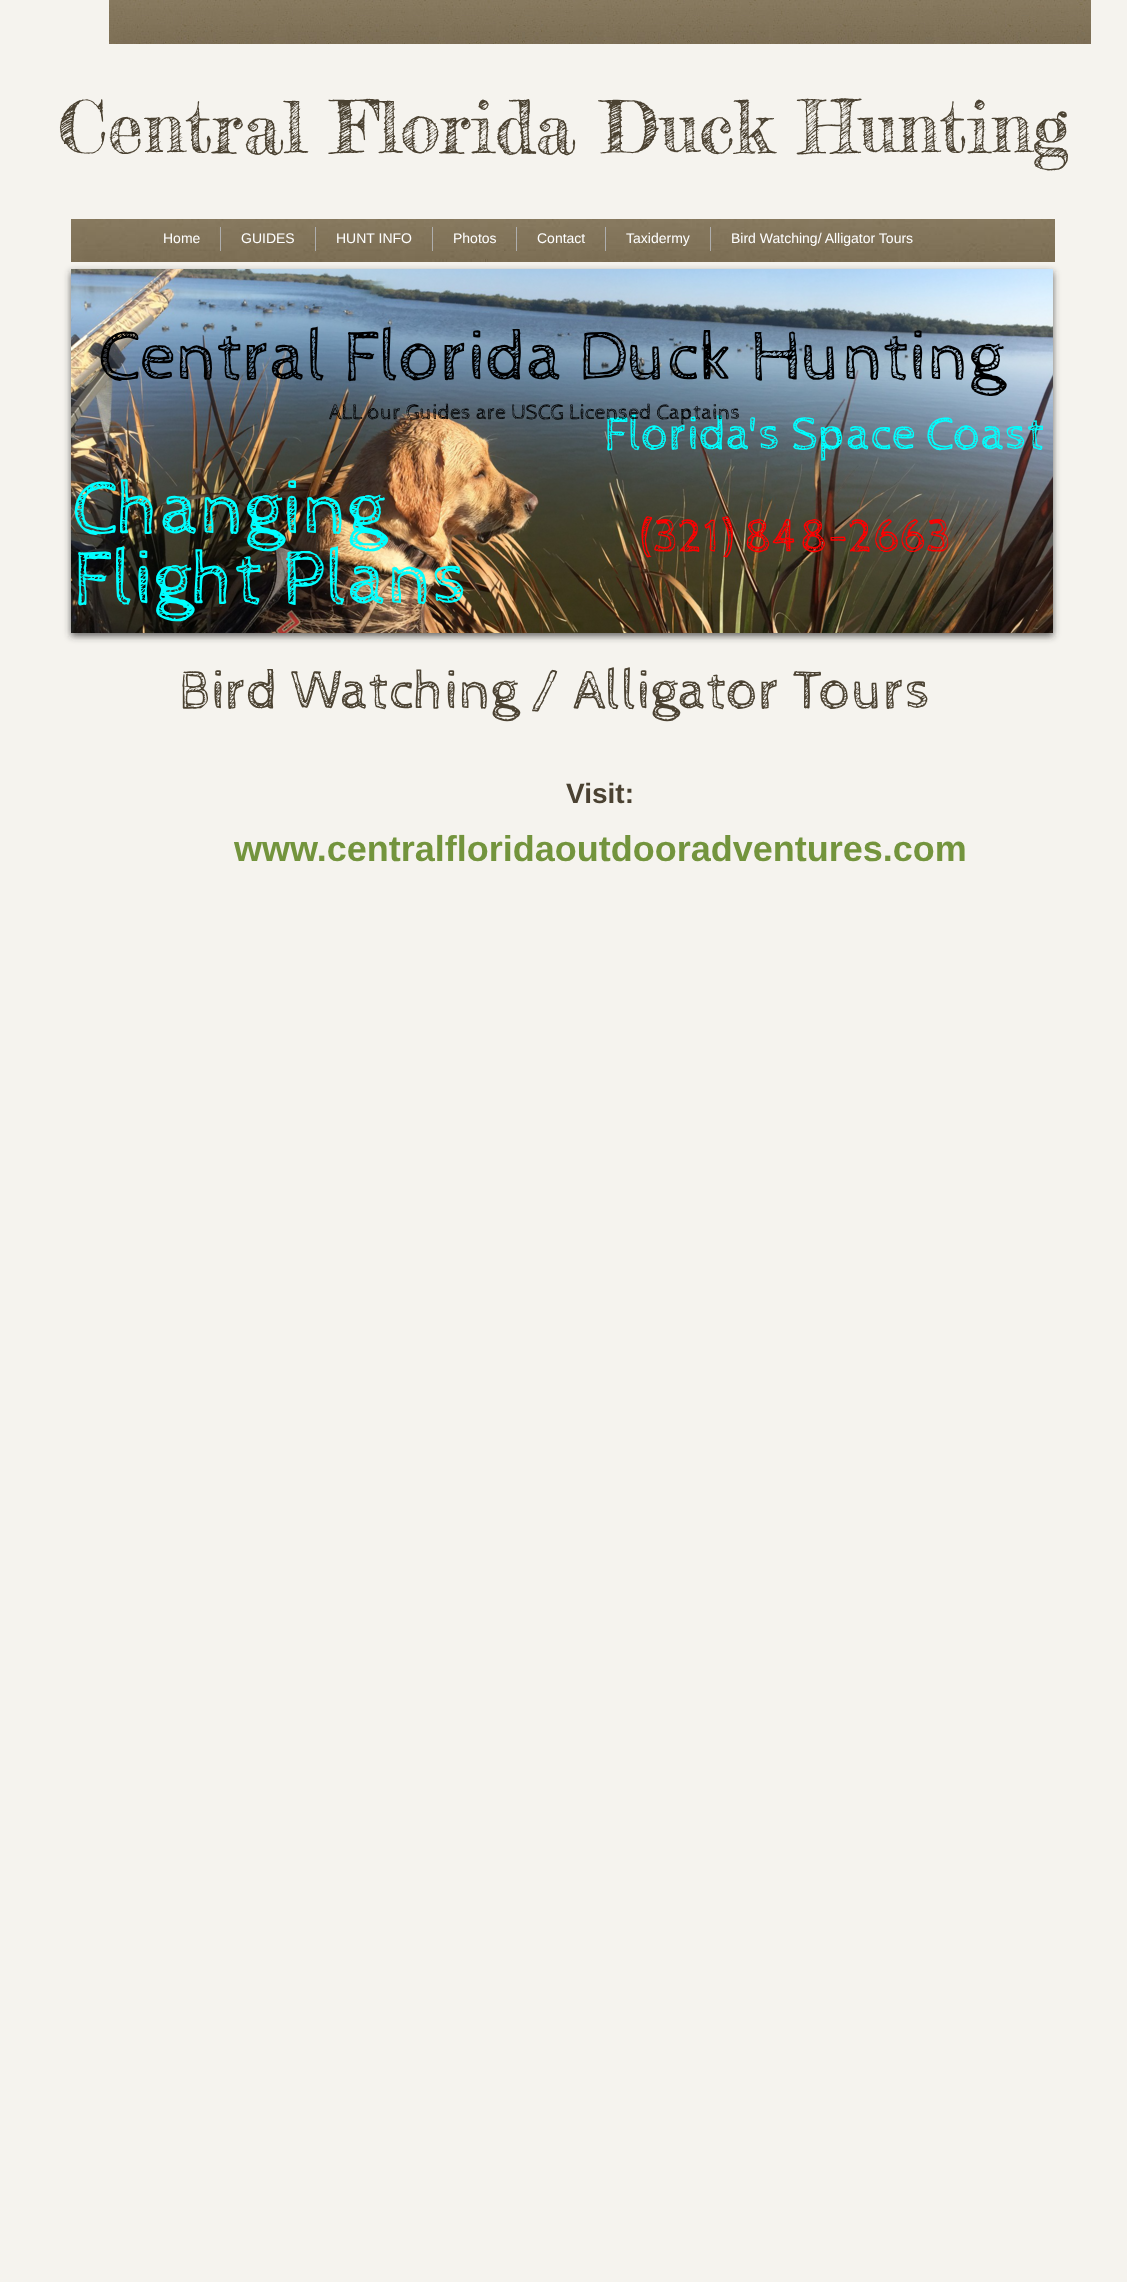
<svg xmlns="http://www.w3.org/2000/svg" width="1127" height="2282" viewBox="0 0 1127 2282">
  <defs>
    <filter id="blur1" x="-50%" y="-200%" width="200%" height="500%"><feGaussianBlur stdDeviation="3.5"/></filter>
  </defs>
  <rect width="100%" height="100%" fill="#f5f3ee"/>
  <image x="109" y="0" width="982" height="44" href="img1.png"/>
  <text x="58" y="153" font-family="Fredericka the Great" font-size="72" fill="#4b4232">Central Florida Duck Hunting</text>
  <rect x="71" y="272" width="982" height="364" fill="#323232" fill-opacity="0.75" filter="url(#blur1)"/>
  <image x="71" y="219" width="984" height="43" href="img2.png"/>
  <rect x="220" y="227" width="1" height="24" fill="#aeaeae"/>
  <text x="163" y="243" font-family="Liberation Sans" font-size="14" fill="#ffffff">Home</text>
  <rect x="315" y="227" width="1" height="24" fill="#aeaeae"/>
  <text x="241" y="243" font-family="Liberation Sans" font-size="14" fill="#ffffff">GUIDES</text>
  <rect x="432" y="227" width="1" height="24" fill="#aeaeae"/>
  <text x="336" y="243" font-family="Liberation Sans" font-size="14" fill="#ffffff">HUNT INFO</text>
  <rect x="516" y="227" width="1" height="24" fill="#aeaeae"/>
  <text x="453" y="243" font-family="Liberation Sans" font-size="14" fill="#ffffff">Photos</text>
  <rect x="605" y="227" width="1" height="24" fill="#aeaeae"/>
  <text x="537" y="243" font-family="Liberation Sans" font-size="14" fill="#ffffff">Contact</text>
  <rect x="710" y="227" width="1" height="24" fill="#aeaeae"/>
  <text x="626" y="243" font-family="Liberation Sans" font-size="14" fill="#ffffff">Taxidermy</text>
  <text x="731" y="243" font-family="Liberation Sans" font-size="14" fill="#ffffff">Bird Watching/ Alligator Tours</text>
  <image x="71" y="269" width="982" height="364" href="img3.png"/>
  <text x="99" y="379" font-family="Cabin Sketch" font-size="72" fill="#000000">Central Florida Duck Hunting</text>
  <text x="604" y="449" font-family="Cabin Sketch" font-size="48" fill="#00ffff">Florida's Space Coast</text>
  <text x="329" y="419" font-family="Cabin Sketch" font-size="22" fill="#000000">ALL our Guides are USCG Licensed Captains</text>
  <text x="73" y="533" font-family="Cabin Sketch" font-size="78" fill="#00ffff">Changing</text>
  <text x="73" y="603" font-family="Cabin Sketch" font-size="78" fill="#00ffff">Flight Plans</text>
  <text x="639" y="551" font-family="Cabin Sketch" font-size="48" fill="#ff0000">(321) 848-2663</text>
  <text x="179" y="708" font-family="Cabin Sketch" font-size="56" fill="#4b4232">Bird Watching / Alligator Tours</text>
  <text x="566" y="803" font-family="Liberation Sans" font-size="28" font-weight="bold" fill="#4b4232">Visit:</text>
  <text x="234" y="861" font-family="Liberation Sans" font-size="36" font-weight="bold" fill="#73943d">www.centralfloridaoutdooradventures.com</text>
</svg>
